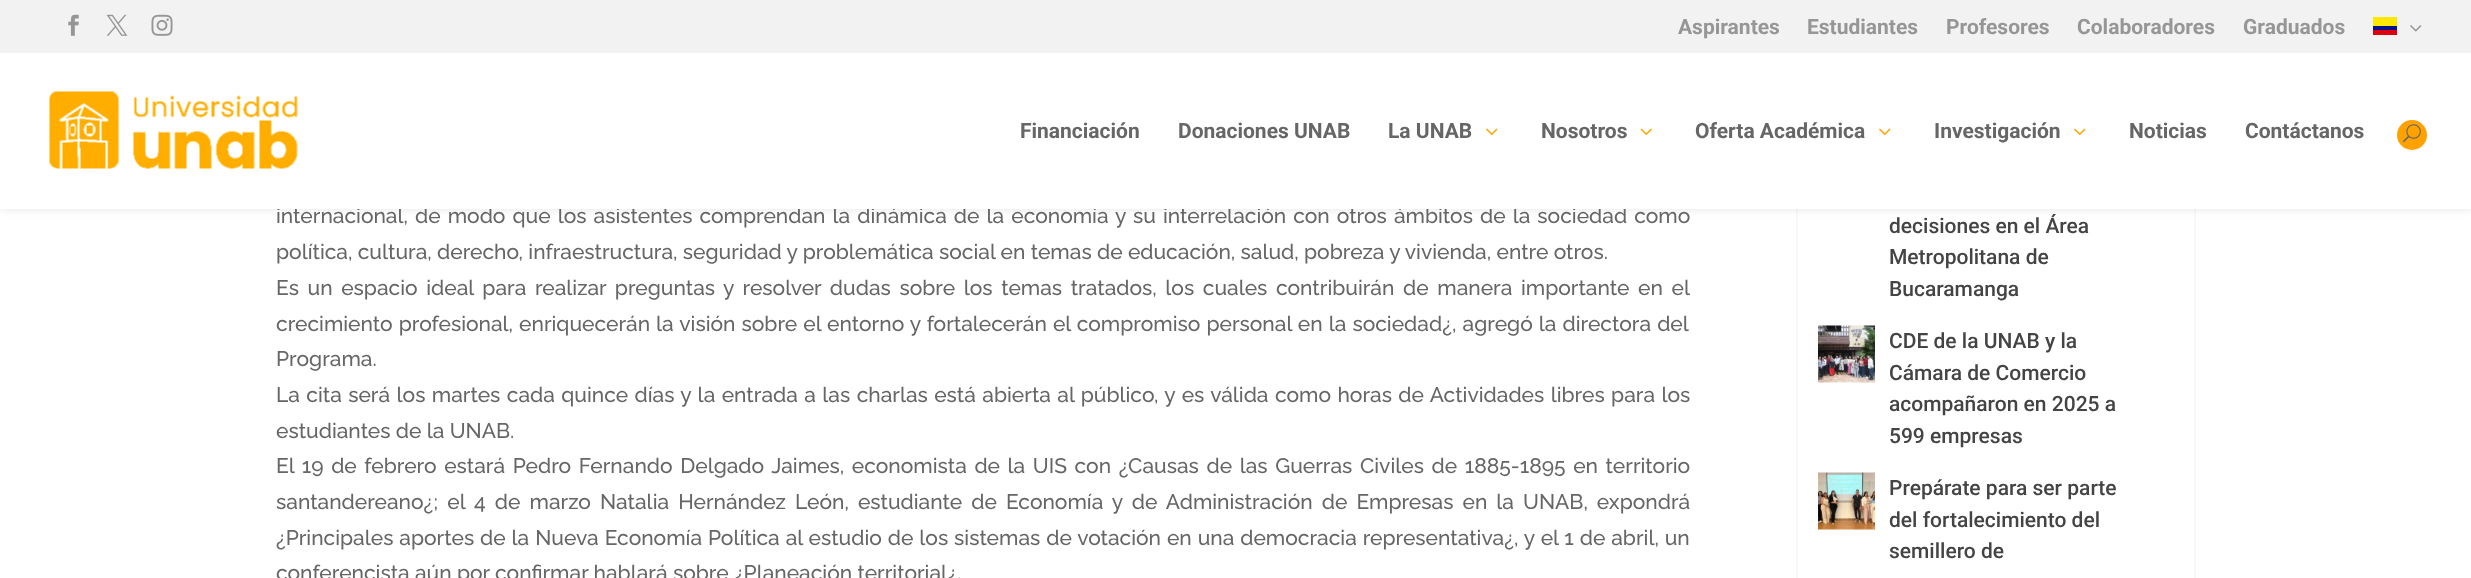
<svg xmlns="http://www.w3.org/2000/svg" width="2471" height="578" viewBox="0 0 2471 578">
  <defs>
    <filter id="blur1" x="-50%" y="-200%" width="200%" height="500%"><feGaussianBlur stdDeviation="5"/></filter>
  </defs>
  <rect width="100%" height="100%" fill="#ffffff"/>
  <rect x="1797" y="-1" width="398" height="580" fill="none" stroke="#f8f8f8" stroke-width="2"/>
  <rect x="0" y="53" width="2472" height="156" fill="#000000" fill-opacity="0.1" filter="url(#blur1)"/>
  <rect x="0" y="0" width="2471" height="53" fill="#f2f2f2"/>
  <image x="68" y="14" width="11" height="22" href="img1.png"/>
  <image x="106" y="14" width="22" height="22" href="img2.png"/>
  <image x="151" y="14" width="22" height="22" href="img3.png"/>
  <text x="1678" y="34" font-family="Roboto" font-size="21" font-weight="bold" fill="#969696">Aspirantes</text>
  <text x="1807" y="34" font-family="Roboto" font-size="21" font-weight="bold" fill="#969696">Estudiantes</text>
  <text x="1946" y="34" font-family="Roboto" font-size="21" font-weight="bold" fill="#969696">Profesores</text>
  <text x="2077" y="34" font-family="Roboto" font-size="21" font-weight="bold" fill="#969696">Colaboradores</text>
  <text x="2243" y="34" font-family="Roboto" font-size="21" font-weight="bold" fill="#969696">Graduados</text>
  <rect x="2373" y="17" width="24" height="9" fill="#ffe800"/>
  <rect x="2373" y="26" width="24" height="4" fill="#00148e"/>
  <image x="2410" y="25" width="12" height="7" href="img4.png"/>
  <rect x="2373" y="30" width="24" height="5" fill="#da0010"/>
  <text x="276" y="223" word-spacing="1.75" font-family="Raleway" font-size="21" font-weight="500" fill="#666666">internacional, de modo que los asistentes comprendan la dinámica de la economía y su interrelación con otros ámbitos de la sociedad como</text>
  <rect x="0" y="53" width="2471" height="156" fill="#ffffff"/>
  <image x="49" y="91" width="249" height="78" href="img5.png"/>
  <text x="1020" y="138" font-family="Roboto" font-size="21" font-weight="bold" fill="#666666">Financiación</text>
  <text x="1178" y="138" font-family="Roboto" font-size="21" font-weight="bold" fill="#666666">Donaciones UNAB</text>
  <text x="1388" y="138" font-family="Roboto" font-size="21" font-weight="bold" fill="#666666">La UNAB</text>
  <image x="1486" y="128" width="12" height="7" href="img6.png"/>
  <text x="1541" y="138" font-family="Roboto" font-size="21" font-weight="bold" fill="#666666">Nosotros</text>
  <image x="1640" y="128" width="12" height="7" href="img7.png"/>
  <text x="1695" y="138" font-family="Roboto" font-size="21" font-weight="bold" fill="#666666">Oferta Académica</text>
  <image x="1879" y="128" width="12" height="7" href="img6.png"/>
  <text x="1934" y="138" font-family="Roboto" font-size="21" font-weight="bold" fill="#666666">Investigación</text>
  <image x="2074" y="128" width="12" height="7" href="img6.png"/>
  <text x="2129" y="138" font-family="Roboto" font-size="21" font-weight="bold" fill="#666666">Noticias</text>
  <text x="2245" y="138" font-family="Roboto" font-size="21" font-weight="bold" fill="#666666">Contáctanos</text>
  <circle cx="2412" cy="135" r="15" fill="#ffa200"/>
  <image x="2403" y="124" width="18" height="19" href="img8.png"/>
  <text x="276" y="259" font-family="Raleway" font-size="21" font-weight="500" fill="#666666">política, cultura, derecho, infraestructura, seguridad y problemática social en temas de educación, salud, pobreza y vivienda, entre otros.</text>
  <text x="276" y="295" word-spacing="3.3" font-family="Raleway" font-size="21" font-weight="500" fill="#666666">Es un espacio ideal para realizar preguntas y resolver dudas sobre los temas tratados, los cuales contribuirán de manera importante en el</text>
  <text x="276" y="331" word-spacing="0.75" font-family="Raleway" font-size="21" font-weight="500" fill="#666666">crecimiento profesional, enriquecerán la visión sobre el entorno y fortalecerán el compromiso personal en la sociedad¿, agregó la directora del</text>
  <text x="276" y="366" font-family="Raleway" font-size="21" font-weight="500" fill="#666666">Programa.</text>
  <text x="276" y="402" word-spacing="1.1" font-family="Raleway" font-size="21" font-weight="500" fill="#666666">La cita será los martes cada quince días y la entrada a las charlas está abierta al público, y es válida como horas de Actividades libres para los</text>
  <text x="276" y="438" font-family="Raleway" font-size="21" font-weight="500" fill="#666666">estudiantes de la UNAB.</text>
  <text x="276" y="473" word-spacing="2.3" font-family="Raleway" font-size="21" font-weight="500" fill="#666666">El 19 de febrero estará Pedro Fernando Delgado Jaimes, economista de la UIS con ¿Causas de las Guerras Civiles de 1885-1895 en territorio</text>
  <text x="276" y="509" word-spacing="3.75" font-family="Raleway" font-size="21" font-weight="500" fill="#666666">santandereano¿; el 4 de marzo Natalia Hernández León, estudiante de Economía y de Administración de Empresas en la UNAB, expondrá</text>
  <text x="276" y="545" word-spacing="0.6" font-family="Raleway" font-size="21" font-weight="500" fill="#666666">¿Principales aportes de la Nueva Economía Política al estudio de los sistemas de votación en una democracia representativa¿, y el 1 de abril, un</text>
  <text x="276" y="580" font-family="Raleway" font-size="21" font-weight="500" fill="#666666">conferencista aún por confirmar hablará sobre ¿Planeación territorial¿.</text>
  <text x="1889" y="233" font-family="Roboto" font-size="21" font-weight="500" fill="#444444">decisiones en el Área</text>
  <text x="1889" y="264" font-family="Roboto" font-size="21" font-weight="500" fill="#444444">Metropolitana de</text>
  <text x="1889" y="296" font-family="Roboto" font-size="21" font-weight="500" fill="#444444">Bucaramanga</text>
  <image x="1818" y="325" width="57" height="58" href="img9.png"/>
  <text x="1889" y="348" font-family="Roboto" font-size="21" font-weight="500" fill="#444444">CDE de la UNAB y la</text>
  <text x="1889" y="380" font-family="Roboto" font-size="21" font-weight="500" fill="#444444">Cámara de Comercio</text>
  <text x="1889" y="411" font-family="Roboto" font-size="21" font-weight="500" fill="#444444">acompañaron en 2025 a</text>
  <text x="1889" y="443" font-family="Roboto" font-size="21" font-weight="500" fill="#444444">599 empresas</text>
  <image x="1818" y="472" width="57" height="58" href="img10.png"/>
  <text x="1889" y="495" font-family="Roboto" font-size="21" font-weight="500" fill="#444444">Prepárate para ser parte</text>
  <text x="1889" y="527" font-family="Roboto" font-size="21" font-weight="500" fill="#444444">del fortalecimiento del</text>
  <text x="1889" y="558" font-family="Roboto" font-size="21" font-weight="500" fill="#444444">semillero de</text>
</svg>
